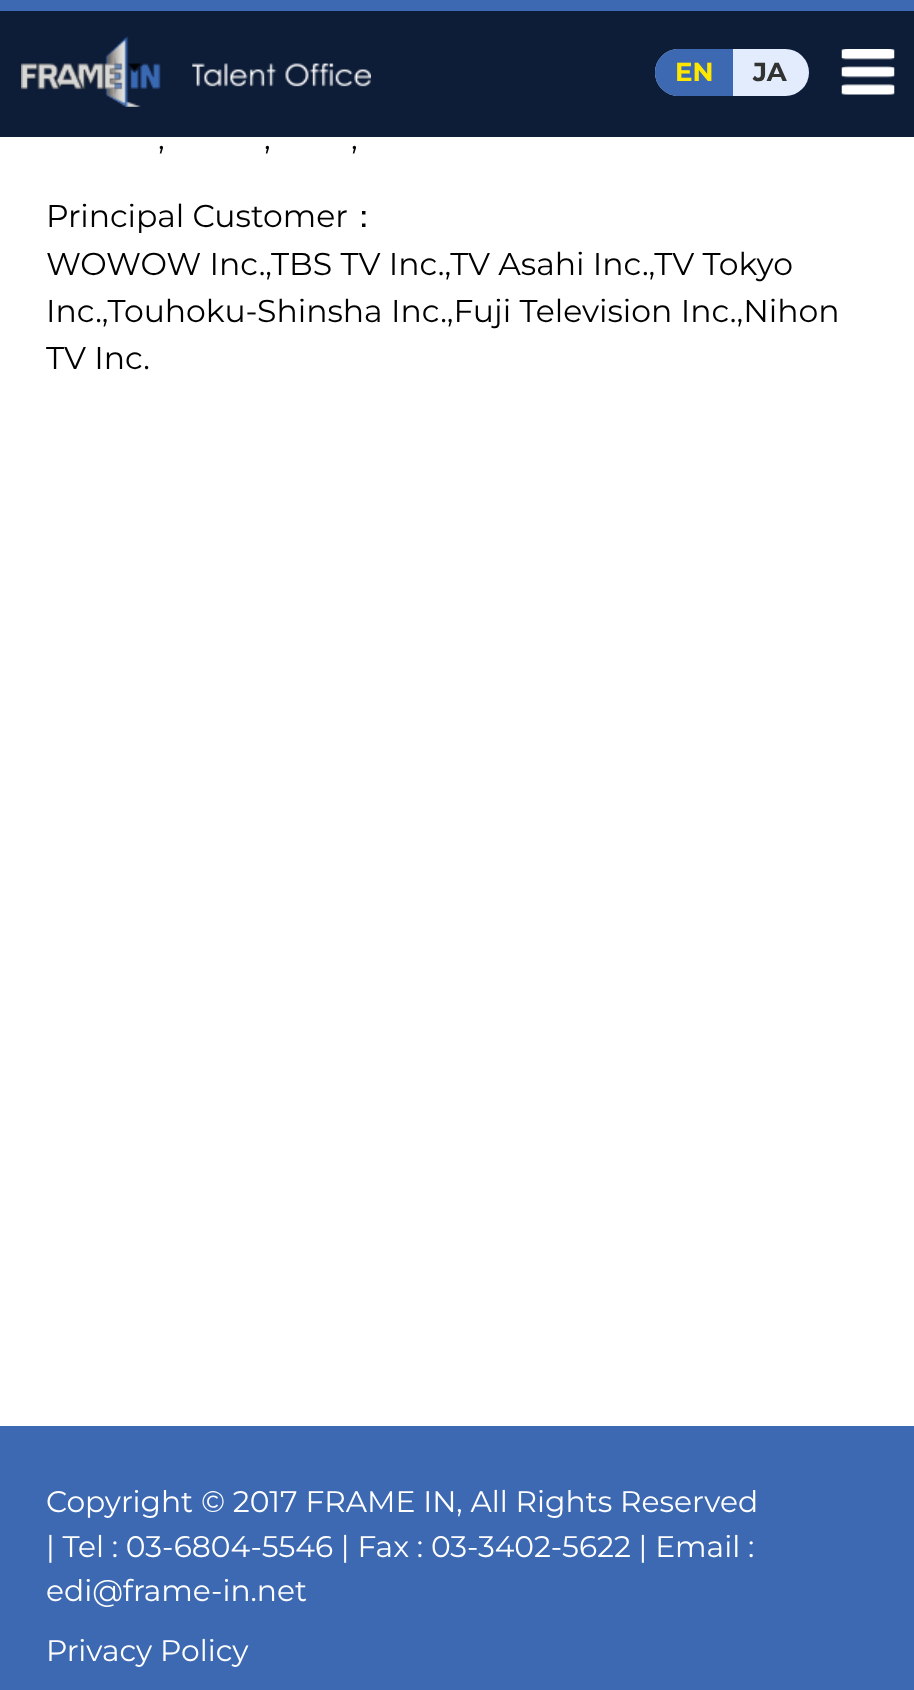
<svg xmlns="http://www.w3.org/2000/svg" width="914" height="1690" viewBox="0 0 914 1690">
  <rect width="100%" height="100%" fill="#ffffff"/>
  <rect x="0" y="11" width="914" height="126" fill="#0d1c37"/>
  <rect x="0" y="0" width="914" height="11" fill="#3d69b2"/>
  <image x="21" y="36" width="350" height="71" href="img1.png"/>
  <rect x="655" y="49" width="154" height="47" rx="23.5" fill="#e2ecfc"/>
  <path d="M678.5 49H733V96H678.5C665.5 96 655 85.5 655 72.5C655 59.5 665.5 49 678.5 49Z" fill="#3d69b2"/>
  <text x="675" y="81" font-family="Montserrat" font-size="26" font-weight="bold" fill="#ffe700">EN</text>
  <text x="753" y="81" font-family="Montserrat" font-size="26" font-weight="bold" fill="#323232">JA</text>
  <image x="841" y="49" width="54" height="46" href="img2.png"/>
  <text x="158" y="149" font-family="Montserrat" font-size="31.5" fill="#000000">,</text>
  <text x="264" y="149" font-family="Montserrat" font-size="31.5" fill="#000000">,</text>
  <text x="351" y="149" font-family="Montserrat" font-size="31.5" fill="#000000">,</text>
  <text x="46" y="227" font-family="Montserrat" font-size="31.5" fill="#000000">Principal Customer</text>
  <text x="348" y="227" font-family="WenQuanYi Zen Hei" font-size="31.5" font-weight="500" fill="#000000">：</text>
  <text x="46" y="275" font-family="Montserrat" font-size="31.5" fill="#000000">WOWOW Inc.,TBS TV Inc.,TV Asahi Inc.,TV Tokyo</text>
  <text x="46" y="322" font-family="Montserrat" font-size="31.5" fill="#000000">Inc.,Touhoku-Shinsha Inc.,Fuji Television Inc.,Nihon</text>
  <text x="46" y="369" font-family="Montserrat" font-size="31.5" fill="#000000">TV Inc.</text>
  <rect x="0" y="1426" width="914" height="264" fill="#3d69b2"/>
  <text x="46" y="1512" font-family="Montserrat" font-size="29.75" fill="#ffffff">Copyright © 2017 FRAME IN, All Rights Reserved</text>
  <text x="46" y="1557" font-family="Montserrat" font-size="29.75" fill="#ffffff">| Tel : 03-6804-5546 | Fax : 03-3402-5622 | Email :</text>
  <text x="46" y="1601" font-family="Montserrat" font-size="29.75" fill="#ffffff">edi@frame-in.net</text>
  <text x="46" y="1661" font-family="Montserrat" font-size="29.75" fill="#ffffff">Privacy Policy</text>
</svg>
